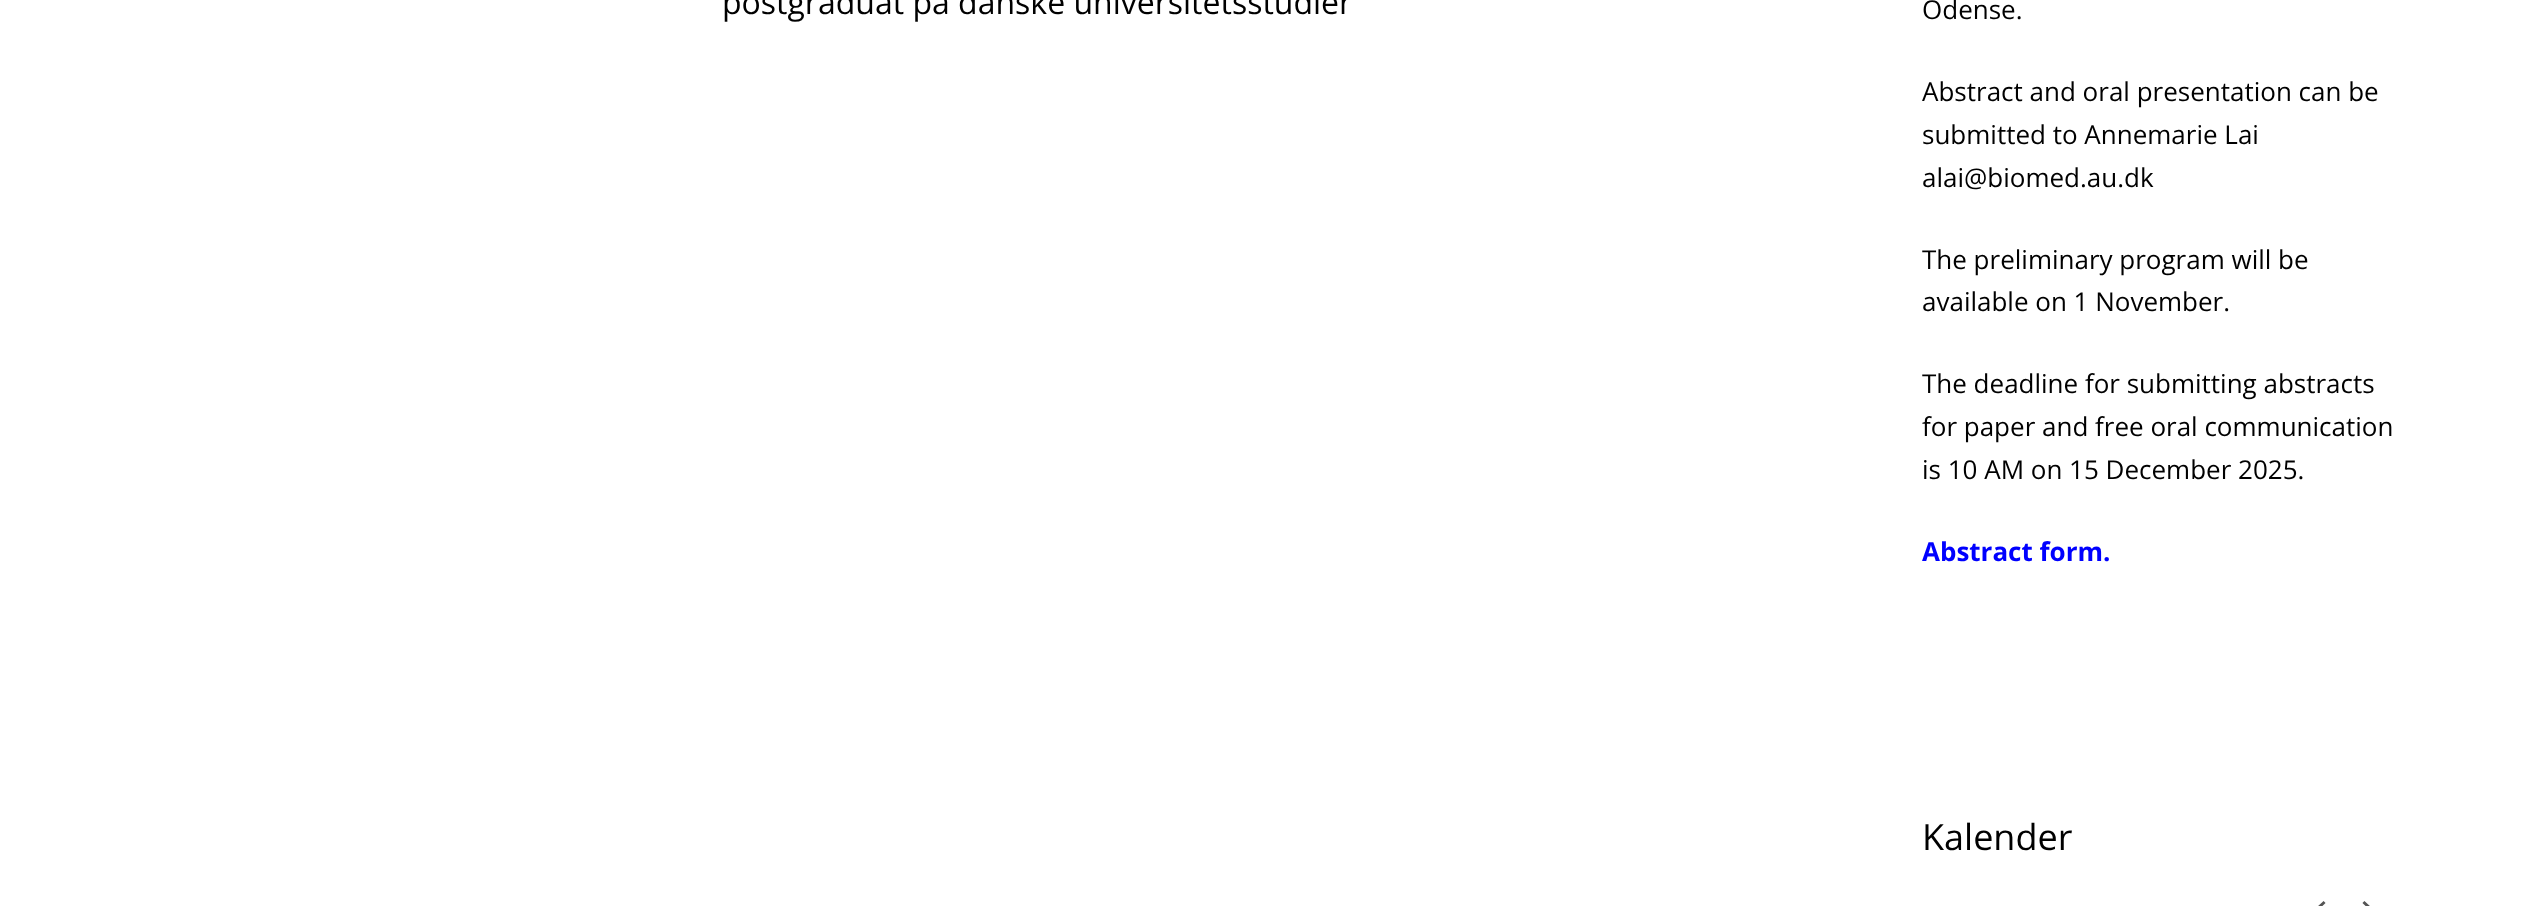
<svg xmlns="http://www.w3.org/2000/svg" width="2524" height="906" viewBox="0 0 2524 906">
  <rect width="100%" height="100%" fill="#ffffff"/>
  <text x="722" y="14" font-family="Open Sans" font-size="32" fill="#000000">postgraduat på danske universitetsstudier</text>
  <text x="1922" y="19" font-family="Open Sans" font-size="26" fill="#000000">Odense.</text>
  <text x="1922" y="101" font-family="Open Sans" font-size="26" fill="#000000">Abstract and oral presentation can be</text>
  <text x="1922" y="144" font-family="Open Sans" font-size="26" fill="#000000">submitted to Annemarie Lai</text>
  <text x="1922" y="187" font-family="Open Sans" font-size="26" fill="#000000">alai@biomed.au.dk</text>
  <text x="1922" y="269" font-family="Open Sans" font-size="26" fill="#000000">The preliminary program will be</text>
  <text x="1922" y="311" font-family="Open Sans" font-size="26" fill="#000000">available on 1 November.</text>
  <text x="1922" y="393" font-family="Open Sans" font-size="26" fill="#000000">The deadline for submitting abstracts</text>
  <text x="1922" y="436" font-family="Open Sans" font-size="26" fill="#000000">for paper and free oral communication</text>
  <text x="1922" y="479" font-family="Open Sans" font-size="26" fill="#000000">is 10 AM on 15 December 2025.</text>
  <text x="1922" y="561" font-family="Open Sans" font-size="26" font-weight="bold" fill="#0000ff">Abstract form.</text>
  <text x="1922" y="850" font-family="Open Sans" font-size="36" fill="#000000">Kalender</text>
  <path d="M2323.5 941L2303 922L2323.5 903M2364.5 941L2385 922L2364.5 903" fill="none" stroke="#555555" stroke-width="2.9" stroke-linecap="square"/>
</svg>
